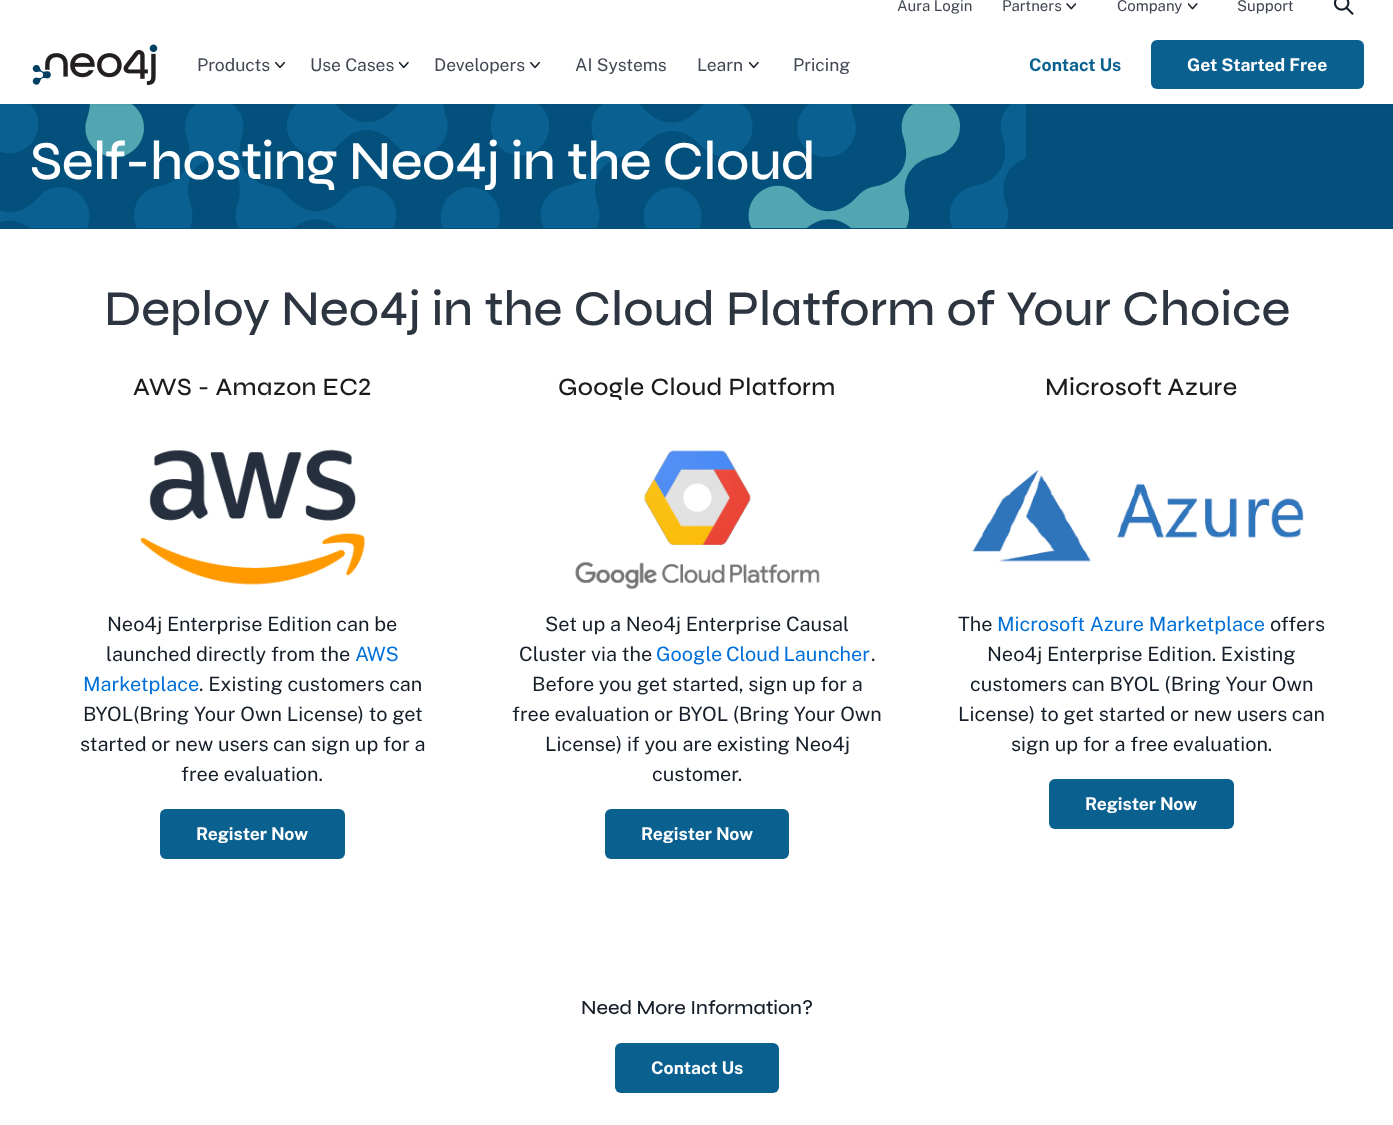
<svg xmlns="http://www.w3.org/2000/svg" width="1393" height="1125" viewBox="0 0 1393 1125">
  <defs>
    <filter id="blur1" x="-50%" y="-200%" width="200%" height="500%"><feGaussianBlur stdDeviation="1"/></filter>
  </defs>
  <rect width="100%" height="100%" fill="#ffffff"/>
  <rect x="0" y="104" width="1393" height="125" fill="#02507b"/>
  <image x="0" y="104" width="1026" height="124" href="img7.png"/>
  <rect x="0" y="-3" width="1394" height="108" fill="#000000" fill-opacity="0.05" filter="url(#blur1)"/>
  <rect x="0" y="0" width="1393" height="104" fill="#ffffff"/>
  <text x="897" y="11" font-family="Public Sans" font-size="15" fill="#404752">Aura Login</text>
  <text x="1002" y="11" font-family="Public Sans" font-size="15" fill="#404752">Partners</text>
  <image x="1066" y="3" width="10" height="7" href="img1.png"/>
  <text x="1117" y="11" font-family="Public Sans" font-size="15" fill="#404752">Company</text>
  <image x="1188" y="3" width="10" height="7" href="img2.png"/>
  <text x="1237" y="11" font-family="Public Sans" font-size="15" fill="#404752">Support</text>
  <image x="1334" y="0" width="20" height="15" href="img3.png"/>
  <image x="32" y="44" width="126" height="41" href="img4.png"/>
  <text x="197" y="71" font-family="Public Sans" font-size="17.5" fill="#404752">Products</text>
  <image x="275" y="61" width="10" height="8" href="img5.png"/>
  <text x="310" y="71" font-family="Public Sans" font-size="17.5" fill="#404752">Use Cases</text>
  <image x="399" y="61" width="10" height="8" href="img6.png"/>
  <text x="434" y="71" font-family="Public Sans" font-size="17.5" fill="#404752">Developers</text>
  <image x="530" y="61" width="10" height="8" href="img5.png"/>
  <text x="575" y="71" font-family="Public Sans" font-size="17.5" fill="#404752">AI Systems</text>
  <text x="697" y="71" font-family="Public Sans" font-size="17.5" fill="#404752">Learn</text>
  <image x="749" y="61" width="10" height="8" href="img6.png"/>
  <text x="793" y="71" font-family="Public Sans" font-size="17.5" fill="#404752">Pricing</text>
  <text x="1029" y="71" font-family="Public Sans" font-size="17.5" font-weight="bold" fill="#0a6190">Contact Us</text>
  <rect x="1151" y="40" width="213" height="49" rx="6" fill="#0a6190"/>
  <text x="1187" y="71" font-family="Public Sans" font-size="17.5" font-weight="bold" fill="#ffffff">Get Started Free</text>
  <text x="30" y="179" font-family="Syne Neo" font-size="55" font-weight="500" letter-spacing="-0.6" fill="#ffffff">Self-hosting Neo4j in the Cloud</text>
  <text x="104" y="325" font-family="Syne Neo" font-size="50" font-weight="500" fill="#2c3540">Deploy Neo4j in the Cloud Platform of Your Choice</text>
  <text x="133" y="395" font-family="Syne Neo" font-size="25" font-weight="500" letter-spacing="0.3" fill="#1a1b1d">AWS - Amazon EC2</text>
  <image x="140" y="449" width="225" height="136" href="img8.png"/>
  <text x="107" y="631" font-family="Public Sans" font-size="19.9" fill="#151e29">Neo4j Enterprise Edition can be</text>
  <text x="106" y="661" font-family="Public Sans" font-size="19.9" fill="#151e29">launched directly from the</text>
  <text x="355" y="661" font-family="Public Sans" font-size="19.9" fill="#0070d9">AWS</text>
  <text x="83" y="691" font-family="Public Sans" font-size="19.9" fill="#0070d9">Marketplace</text>
  <text x="199" y="691" font-family="Public Sans" font-size="19.9" fill="#151e29">. Existing customers can</text>
  <text x="83" y="721" font-family="Public Sans" font-size="19.9" fill="#151e29">BYOL(Bring Your Own License) to get</text>
  <text x="80" y="751" font-family="Public Sans" font-size="19.9" fill="#151e29">started or new users can sign up for a</text>
  <text x="181" y="781" font-family="Public Sans" font-size="19.9" fill="#151e29">free evaluation.</text>
  <rect x="160" y="809" width="185" height="50" rx="6" fill="#0a6190"/>
  <text x="196" y="840" font-family="Public Sans" font-size="17.5" font-weight="bold" fill="#ffffff">Register Now</text>
  <text x="558" y="395" font-family="Syne Neo" font-size="25" font-weight="500" letter-spacing="0.3" fill="#1a1b1d">Google Cloud Platform</text>
  <image x="575" y="450" width="245" height="140" href="img9.png"/>
  <text x="545" y="631" font-family="Public Sans" font-size="19.9" fill="#151e29">Set up a Neo4j Enterprise Causal</text>
  <text x="519" y="661" font-family="Public Sans" font-size="19.9" fill="#151e29">Cluster via the</text>
  <text x="656" y="661" word-spacing="-1" font-family="Public Sans" font-size="19.9" fill="#0070d9">Google Cloud Launcher</text>
  <text x="871" y="661" font-family="Public Sans" font-size="19.9" fill="#151e29">.</text>
  <text x="532" y="691" font-family="Public Sans" font-size="19.9" fill="#151e29">Before you get started, sign up for a</text>
  <text x="512" y="721" font-family="Public Sans" font-size="19.9" fill="#151e29">free evaluation or BYOL (Bring Your Own</text>
  <text x="545" y="751" font-family="Public Sans" font-size="19.9" fill="#151e29">License) if you are existing Neo4j</text>
  <text x="652" y="781" font-family="Public Sans" font-size="19.9" fill="#151e29">customer.</text>
  <rect x="605" y="809" width="184" height="50" rx="6" fill="#0a6190"/>
  <text x="641" y="840" font-family="Public Sans" font-size="17.5" font-weight="bold" fill="#ffffff">Register Now</text>
  <text x="1045" y="395" font-family="Syne Neo" font-size="25" font-weight="500" letter-spacing="0.3" fill="#1a1b1d">Microsoft Azure</text>
  <image x="972" y="469" width="332" height="93" href="img10.png"/>
  <text x="958" y="631" font-family="Public Sans" font-size="19.9" fill="#151e29">The</text>
  <text x="997" y="631" font-family="Public Sans" font-size="19.9" fill="#0070d9">Microsoft Azure Marketplace</text>
  <text x="1270" y="631" font-family="Public Sans" font-size="19.9" fill="#151e29">offers</text>
  <text x="987" y="661" font-family="Public Sans" font-size="19.9" fill="#151e29">Neo4j Enterprise Edition. Existing</text>
  <text x="970" y="691" font-family="Public Sans" font-size="19.9" fill="#151e29">customers can BYOL (Bring Your Own</text>
  <text x="958" y="721" font-family="Public Sans" font-size="19.9" fill="#151e29">License) to get started or new users can</text>
  <text x="1011" y="751" font-family="Public Sans" font-size="19.9" fill="#151e29">sign up for a free evaluation.</text>
  <rect x="1049" y="779" width="185" height="50" rx="6" fill="#0a6190"/>
  <text x="1085" y="810" font-family="Public Sans" font-size="17.5" font-weight="bold" fill="#ffffff">Register Now</text>
  <text x="581" y="1014" font-family="Syne Neo" font-size="19.9" font-weight="500" fill="#151e29">Need More Information?</text>
  <rect x="615" y="1043" width="164" height="50" rx="6" fill="#0a6190"/>
  <text x="651" y="1074" font-family="Public Sans" font-size="17.5" font-weight="bold" fill="#ffffff">Contact Us</text>
</svg>
